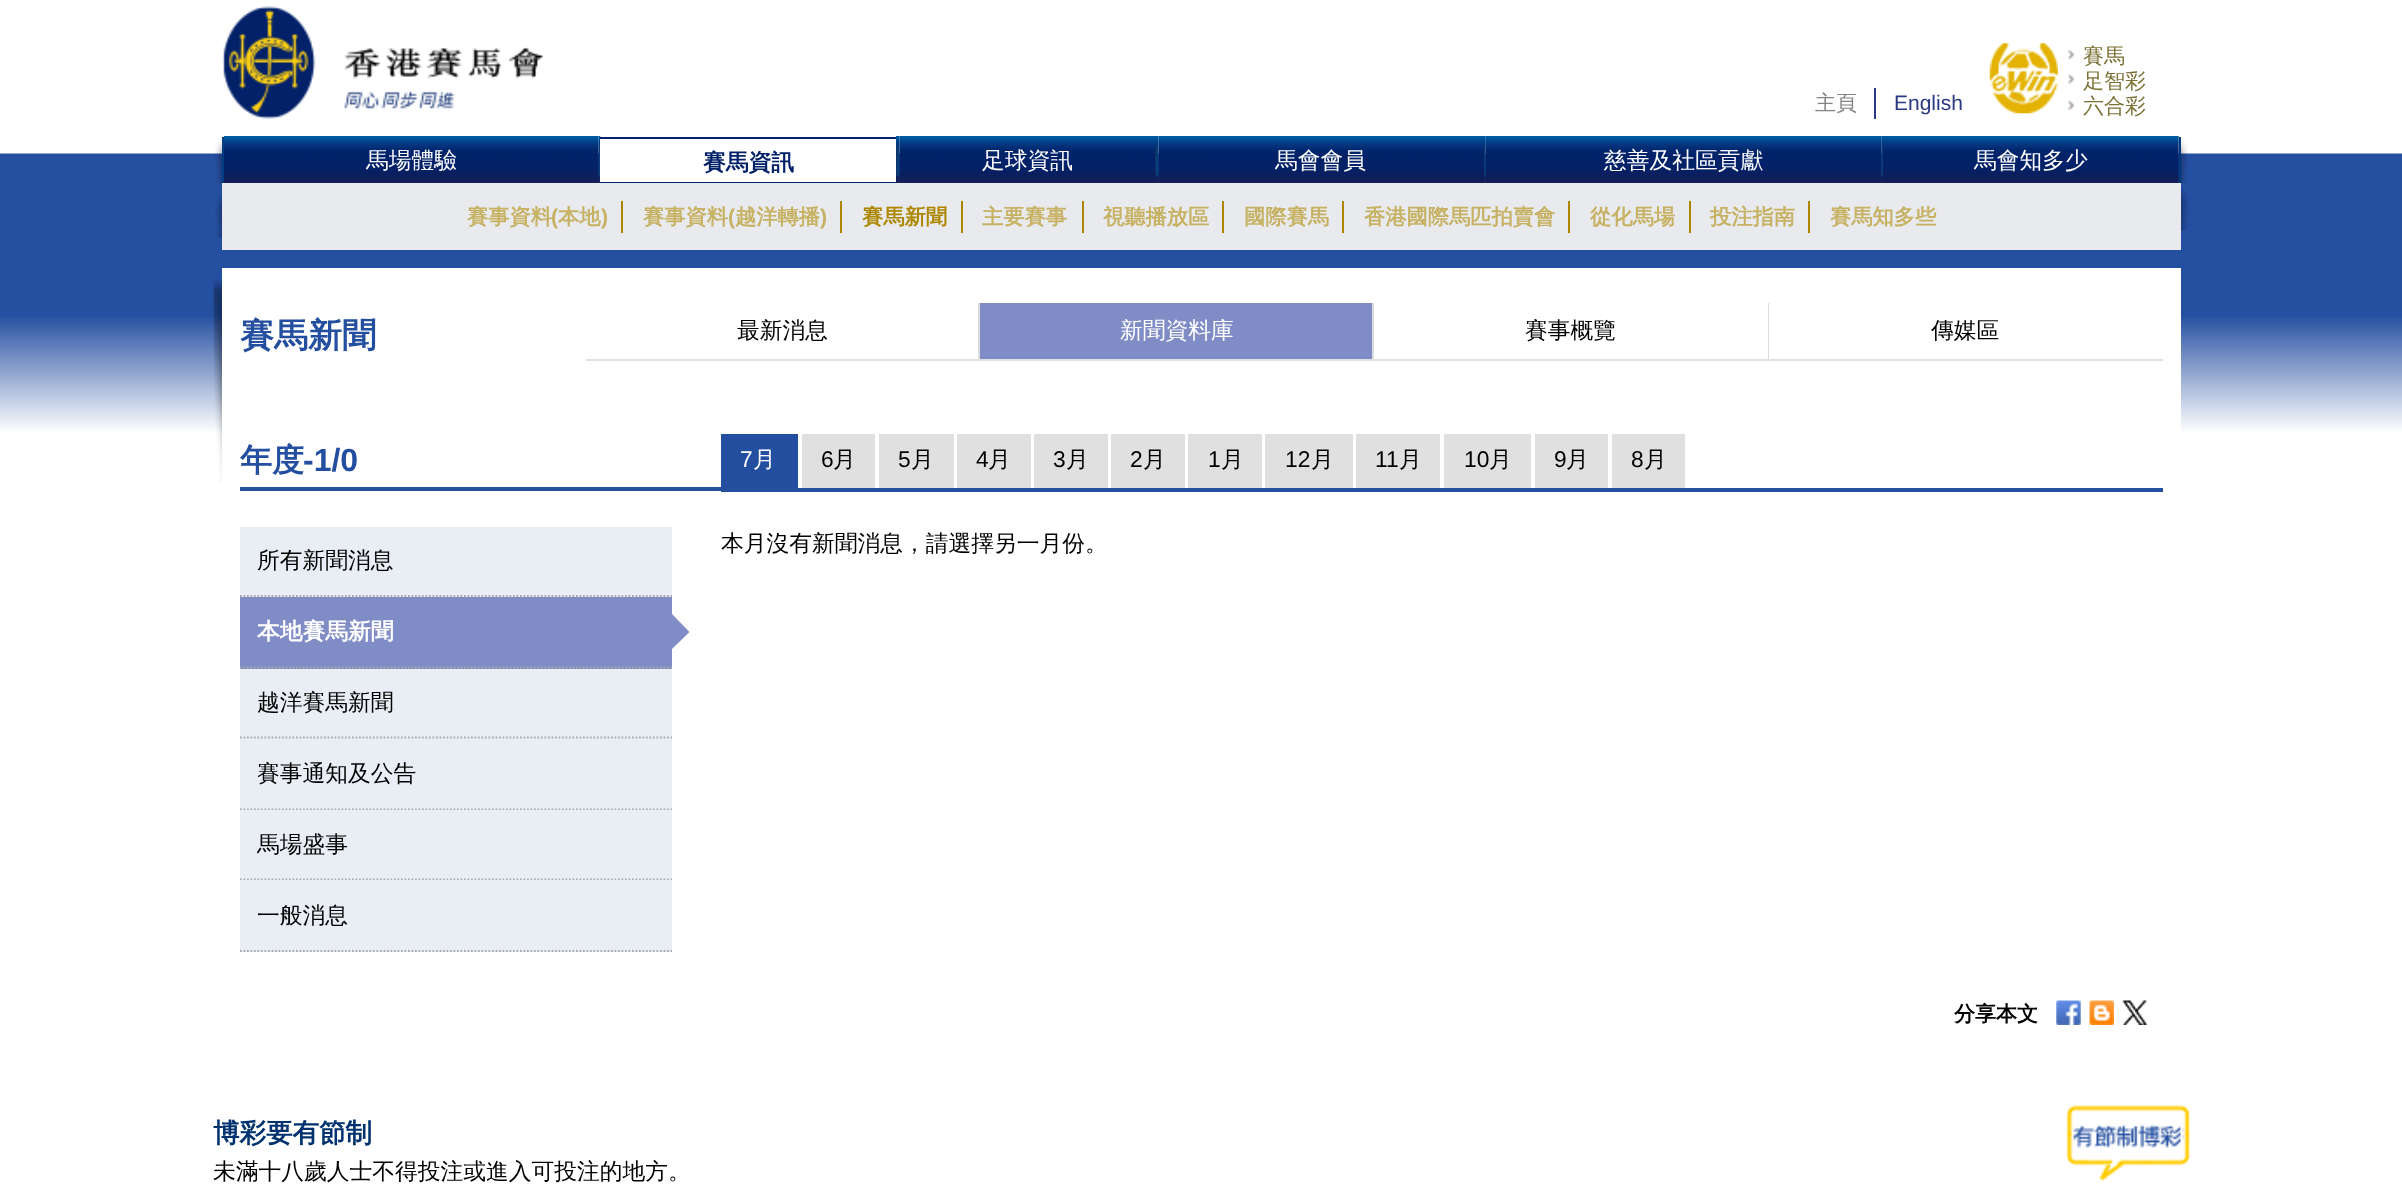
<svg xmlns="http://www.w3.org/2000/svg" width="2402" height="1201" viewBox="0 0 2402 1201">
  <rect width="100%" height="100%" fill="#ffffff"/>
  <image x="0" y="153" width="2402" height="279" href="img1.png"/>
  <image x="222" y="6" width="321" height="113" href="img2.png"/>
  <text x="1815" y="110" font-family="WenQuanYi Zen Hei" font-size="21" font-weight="500" fill="#848484">主頁</text>
  <rect x="1874" y="88" width="2" height="31" fill="#2a3981"/>
  <text x="1894" y="110" font-family="Liberation Sans" font-size="21" fill="#2a3981">English</text>
  <image x="1989" y="43" width="69" height="71" href="img3.png"/>
  <image x="2068" y="50" width="6" height="9" href="img4.png"/>
  <text x="2083" y="63" font-family="WenQuanYi Zen Hei" font-size="21" font-weight="500" fill="#7b7135">賽馬</text>
  <image x="2068" y="74" width="6" height="10" href="img5.png"/>
  <text x="2083" y="88" font-family="WenQuanYi Zen Hei" font-size="21" font-weight="500" fill="#7b7135">足智彩</text>
  <image x="2068" y="101" width="6" height="9" href="img6.png"/>
  <text x="2083" y="113" font-family="WenQuanYi Zen Hei" font-size="21" font-weight="500" fill="#7b7135">六合彩</text>
  <image x="215" y="139" width="7" height="45" href="img7.png"/>
  <rect x="222" y="137" width="2" height="47" fill="#003c84"/>
  <image x="598" y="136" width="3" height="47" href="img9.png"/>
  <image x="224" y="136" width="375" height="47" href="img8.png"/>
  <text x="366" y="168" font-family="WenQuanYi Zen Hei" font-size="22.75" font-weight="500" fill="#ffffff">馬場體驗</text>
  <rect x="600" y="139" width="296" height="43" fill="#ffffff"/>
  <rect x="600" y="137" width="296" height="2" fill="#022169"/>
  <rect x="600" y="182" width="296" height="1" fill="#022169"/>
  <text x="703" y="170" font-family="WenQuanYi Zen Hei" font-size="22.75" font-weight="bold" fill="#022169">賽馬資訊</text>
  <image x="896" y="136" width="4" height="47" href="img10.png"/>
  <image x="899" y="136" width="256" height="47" href="img11.png"/>
  <text x="982" y="168" font-family="WenQuanYi Zen Hei" font-size="22.75" font-weight="500" fill="#ffffff">足球資訊</text>
  <image x="1155" y="136" width="4" height="47" href="img12.png"/>
  <image x="1158" y="136" width="326" height="47" href="img13.png"/>
  <text x="1275" y="168" font-family="WenQuanYi Zen Hei" font-size="22.75" font-weight="500" fill="#ffffff">馬會會員</text>
  <image x="1484" y="136" width="2" height="47" href="img14.png"/>
  <image x="1881" y="136" width="2" height="47" href="img16.png"/>
  <image x="1485" y="136" width="397" height="47" href="img15.png"/>
  <text x="1604" y="168" font-family="WenQuanYi Zen Hei" font-size="22.75" font-weight="500" fill="#ffffff">慈善及社區貢獻</text>
  <rect x="2179" y="137" width="2" height="47" fill="#003c84"/>
  <image x="1883" y="136" width="296" height="47" href="img17.png"/>
  <text x="1974" y="168" font-family="WenQuanYi Zen Hei" font-size="22.75" font-weight="500" fill="#ffffff">馬會知多少</text>
  <image x="2180" y="140" width="8" height="44" href="img18.png"/>
  <image x="215" y="194" width="7" height="44" href="img19.png"/>
  <rect x="222" y="183" width="1959" height="67" fill="#e8eaee"/>
  <rect x="621" y="201" width="2" height="32" fill="#ae8701"/>
  <text x="467" y="224" font-family="WenQuanYi Zen Hei" font-size="21.25" font-weight="bold" fill="#c7b163">賽事資料</text>
  <text x="551" y="224" font-family="Liberation Sans" font-size="21.25" font-weight="bold" fill="#c7b163">(</text>
  <text x="558" y="224" font-family="WenQuanYi Zen Hei" font-size="21.25" font-weight="bold" fill="#c7b163">本地</text>
  <text x="601" y="224" font-family="Liberation Sans" font-size="21.25" font-weight="bold" fill="#c7b163">)</text>
  <rect x="840" y="201" width="2" height="32" fill="#ae8701"/>
  <text x="643" y="224" font-family="WenQuanYi Zen Hei" font-size="21.25" font-weight="bold" fill="#c7b163">賽事資料</text>
  <text x="728" y="224" font-family="Liberation Sans" font-size="21.25" font-weight="bold" fill="#c7b163">(</text>
  <text x="735" y="224" font-family="WenQuanYi Zen Hei" font-size="21.25" font-weight="bold" fill="#c7b163">越洋轉播</text>
  <text x="820" y="224" font-family="Liberation Sans" font-size="21.25" font-weight="bold" fill="#c7b163">)</text>
  <rect x="961" y="201" width="2" height="32" fill="#ae8701"/>
  <text x="862" y="224" font-family="WenQuanYi Zen Hei" font-size="21.25" font-weight="bold" fill="#ae8701">賽馬新聞</text>
  <rect x="1082" y="201" width="2" height="32" fill="#ae8701"/>
  <text x="982" y="224" font-family="WenQuanYi Zen Hei" font-size="21.25" font-weight="bold" fill="#c7b163">主要賽事</text>
  <rect x="1222" y="201" width="2" height="32" fill="#ae8701"/>
  <text x="1103" y="224" font-family="WenQuanYi Zen Hei" font-size="21.25" font-weight="bold" fill="#c7b163">視聽播放區</text>
  <rect x="1342" y="201" width="2" height="32" fill="#ae8701"/>
  <text x="1244" y="224" font-family="WenQuanYi Zen Hei" font-size="21.25" font-weight="bold" fill="#c7b163">國際賽馬</text>
  <rect x="1568" y="201" width="2" height="32" fill="#ae8701"/>
  <text x="1364" y="224" font-family="WenQuanYi Zen Hei" font-size="21.25" font-weight="bold" fill="#c7b163">香港國際馬匹拍賣會</text>
  <rect x="1689" y="201" width="2" height="32" fill="#ae8701"/>
  <text x="1590" y="224" font-family="WenQuanYi Zen Hei" font-size="21.25" font-weight="bold" fill="#c7b163">從化馬場</text>
  <rect x="1808" y="201" width="2" height="32" fill="#ae8701"/>
  <text x="1710" y="224" font-family="WenQuanYi Zen Hei" font-size="21.25" font-weight="bold" fill="#c7b163">投注指南</text>
  <text x="1830" y="224" font-family="WenQuanYi Zen Hei" font-size="21.25" font-weight="bold" fill="#c7b163">賽馬知多些</text>
  <image x="2181" y="187" width="8" height="44" href="img20.png"/>
  <image x="213" y="279" width="9" height="205" href="img21.png"/>
  <rect x="222" y="268" width="1959" height="164" fill="#ffffff"/>
  <text x="240" y="347" font-family="WenQuanYi Zen Hei" font-size="34" font-weight="bold" fill="#244fa1">賽馬新聞</text>
  <rect x="978" y="303" width="2" height="58" fill="#dddddd"/>
  <rect x="586" y="359" width="394" height="2" fill="#e1e1e1"/>
  <text x="737" y="338" font-family="WenQuanYi Zen Hei" font-size="22.75" font-weight="500" fill="#000000">最新消息</text>
  <rect x="980" y="303" width="392" height="56" fill="#808cc5"/>
  <rect x="1372" y="303" width="2" height="58" fill="#dddddd"/>
  <rect x="980" y="359" width="394" height="2" fill="#e1e1e1"/>
  <text x="1120" y="338" font-family="WenQuanYi Zen Hei" font-size="22.75" font-weight="500" fill="#ffffff">新聞資料庫</text>
  <rect x="1768" y="303" width="1" height="58" fill="#dddddd"/>
  <rect x="1374" y="359" width="789" height="2" fill="#e1e1e1"/>
  <text x="1525" y="338" font-family="WenQuanYi Zen Hei" font-size="22.75" font-weight="500" fill="#000000">賽事概覽</text>
  <text x="1931" y="338" font-family="WenQuanYi Zen Hei" font-size="22.75" font-weight="500" fill="#000000">傳媒區</text>
  <rect x="240" y="487" width="481" height="4" fill="#244fa1"/>
  <text x="240" y="471" font-family="WenQuanYi Zen Hei" font-size="32" font-weight="bold" fill="#244fa1">年度</text>
  <text x="303" y="471" font-family="Liberation Sans" font-size="32" font-weight="bold" fill="#244fa1">-1/0</text>
  <rect x="721" y="488" width="1442" height="4" fill="#244fa1"/>
  <rect x="721" y="434" width="77" height="54" fill="#244fa1"/>
  <text x="740" y="467" font-family="Liberation Sans" font-size="22.75" fill="#ffffff">7</text>
  <text x="753" y="467" font-family="WenQuanYi Zen Hei" font-size="22.75" font-weight="500" fill="#ffffff">月</text>
  <rect x="802" y="434" width="73" height="54" fill="#e0e0e0"/>
  <text x="821" y="467" font-family="Liberation Sans" font-size="22.75" fill="#000000">6</text>
  <text x="833" y="467" font-family="WenQuanYi Zen Hei" font-size="22.75" font-weight="500" fill="#000000">月</text>
  <rect x="879" y="434" width="75" height="54" fill="#e0e0e0"/>
  <text x="898" y="467" font-family="Liberation Sans" font-size="22.75" fill="#000000">5</text>
  <text x="911" y="467" font-family="WenQuanYi Zen Hei" font-size="22.75" font-weight="500" fill="#000000">月</text>
  <rect x="957" y="434" width="74" height="54" fill="#e0e0e0"/>
  <text x="976" y="467" font-family="Liberation Sans" font-size="22.75" fill="#000000">4</text>
  <text x="988" y="467" font-family="WenQuanYi Zen Hei" font-size="22.75" font-weight="500" fill="#000000">月</text>
  <rect x="1034" y="434" width="74" height="54" fill="#e0e0e0"/>
  <text x="1053" y="467" font-family="Liberation Sans" font-size="22.75" fill="#000000">3</text>
  <text x="1066" y="467" font-family="WenQuanYi Zen Hei" font-size="22.75" font-weight="500" fill="#000000">月</text>
  <rect x="1111" y="434" width="74" height="54" fill="#e0e0e0"/>
  <text x="1130" y="467" font-family="Liberation Sans" font-size="22.75" fill="#000000">2</text>
  <text x="1143" y="467" font-family="WenQuanYi Zen Hei" font-size="22.75" font-weight="500" fill="#000000">月</text>
  <rect x="1188" y="434" width="74" height="54" fill="#e0e0e0"/>
  <text x="1208" y="467" font-family="Liberation Sans" font-size="22.75" fill="#000000">1</text>
  <text x="1221" y="467" font-family="WenQuanYi Zen Hei" font-size="22.75" font-weight="500" fill="#000000">月</text>
  <rect x="1265" y="434" width="88" height="54" fill="#e0e0e0"/>
  <text x="1285" y="467" font-family="Liberation Sans" font-size="22.75" fill="#000000">12</text>
  <text x="1311" y="467" font-family="WenQuanYi Zen Hei" font-size="22.75" font-weight="500" fill="#000000">月</text>
  <rect x="1356" y="434" width="84" height="54" fill="#e0e0e0"/>
  <text x="1375" y="467" font-family="Liberation Sans" font-size="22.75" fill="#000000">11</text>
  <text x="1399" y="467" font-family="WenQuanYi Zen Hei" font-size="22.75" font-weight="500" fill="#000000">月</text>
  <rect x="1444" y="434" width="87" height="54" fill="#e0e0e0"/>
  <text x="1464" y="467" font-family="Liberation Sans" font-size="22.75" fill="#000000">10</text>
  <text x="1489" y="467" font-family="WenQuanYi Zen Hei" font-size="22.75" font-weight="500" fill="#000000">月</text>
  <rect x="1535" y="434" width="73" height="54" fill="#e0e0e0"/>
  <text x="1554" y="467" font-family="Liberation Sans" font-size="22.75" fill="#000000">9</text>
  <text x="1566" y="467" font-family="WenQuanYi Zen Hei" font-size="22.75" font-weight="500" fill="#000000">月</text>
  <rect x="1612" y="434" width="73" height="54" fill="#e0e0e0"/>
  <text x="1631" y="467" font-family="Liberation Sans" font-size="22.75" fill="#000000">8</text>
  <text x="1644" y="467" font-family="WenQuanYi Zen Hei" font-size="22.75" font-weight="500" fill="#000000">月</text>
  <text x="721" y="551" font-family="WenQuanYi Zen Hei" font-size="22.75" font-weight="500" fill="#000000">本月沒有新聞消息，請選擇另一月份。</text>
  <rect x="240" y="527" width="432" height="70" fill="#e9eef5"/>
  <path d="M240 596H672" fill="none" stroke="#ababab" stroke-width="1.8" stroke-dasharray="1.75 1.75"/>
  <text x="257" y="568" font-family="WenQuanYi Zen Hei" font-size="22.75" font-weight="500" fill="#000000">所有新聞消息</text>
  <rect x="240" y="597" width="432" height="72" fill="#808cc5"/>
  <path d="M240 667.5H672" fill="none" stroke="#ababab" stroke-width="1.8" stroke-dasharray="1.75 1.75"/>
  <text x="257" y="639" font-family="WenQuanYi Zen Hei" font-size="22.75" font-weight="bold" fill="#ffffff">本地賽馬新聞</text>
  <path d="M672 649V614L689.5 632Z" fill="#808cc5"/>
  <rect x="240" y="669" width="432" height="141" fill="#e9eef5"/>
  <path d="M240 737.5H672" fill="none" stroke="#ababab" stroke-width="1.8" stroke-dasharray="1.75 1.75"/>
  <text x="257" y="710" font-family="WenQuanYi Zen Hei" font-size="22.75" font-weight="500" fill="#000000">越洋賽馬新聞</text>
  <path d="M240 809.5H672" fill="none" stroke="#ababab" stroke-width="1.8" stroke-dasharray="1.75 1.75"/>
  <text x="257" y="781" font-family="WenQuanYi Zen Hei" font-size="22.75" font-weight="500" fill="#000000">賽事通知及公告</text>
  <rect x="240" y="810" width="432" height="70" fill="#e9eef5"/>
  <path d="M240 879.5H672" fill="none" stroke="#ababab" stroke-width="1.8" stroke-dasharray="1.75 1.75"/>
  <text x="257" y="852" font-family="WenQuanYi Zen Hei" font-size="22.75" font-weight="500" fill="#000000">馬場盛事</text>
  <rect x="240" y="880" width="432" height="72" fill="#e9eef5"/>
  <path d="M240 951H672" fill="none" stroke="#ababab" stroke-width="1.8" stroke-dasharray="1.75 1.75"/>
  <text x="257" y="923" font-family="WenQuanYi Zen Hei" font-size="22.75" font-weight="500" fill="#000000">一般消息</text>
  <text x="1954" y="1021" font-family="WenQuanYi Zen Hei" font-size="21" font-weight="bold" fill="#000000">分享本文</text>
  <image x="2056" y="1000" width="25" height="25" href="img22.png"/>
  <image x="2089" y="1000" width="25" height="25" href="img23.png"/>
  <image x="2122" y="1000" width="26" height="25" href="img24.png"/>
  <text x="213" y="1142" font-family="WenQuanYi Zen Hei" font-size="26.5" font-weight="bold" fill="#00326f">博彩要有節制</text>
  <text x="213" y="1179" font-family="WenQuanYi Zen Hei" font-size="22.75" font-weight="500" fill="#000000">未滿十八歲人士不得投注或進入可投注的地方。</text>
  <image x="2066" y="1105" width="124" height="77" href="img25.png"/>
</svg>
